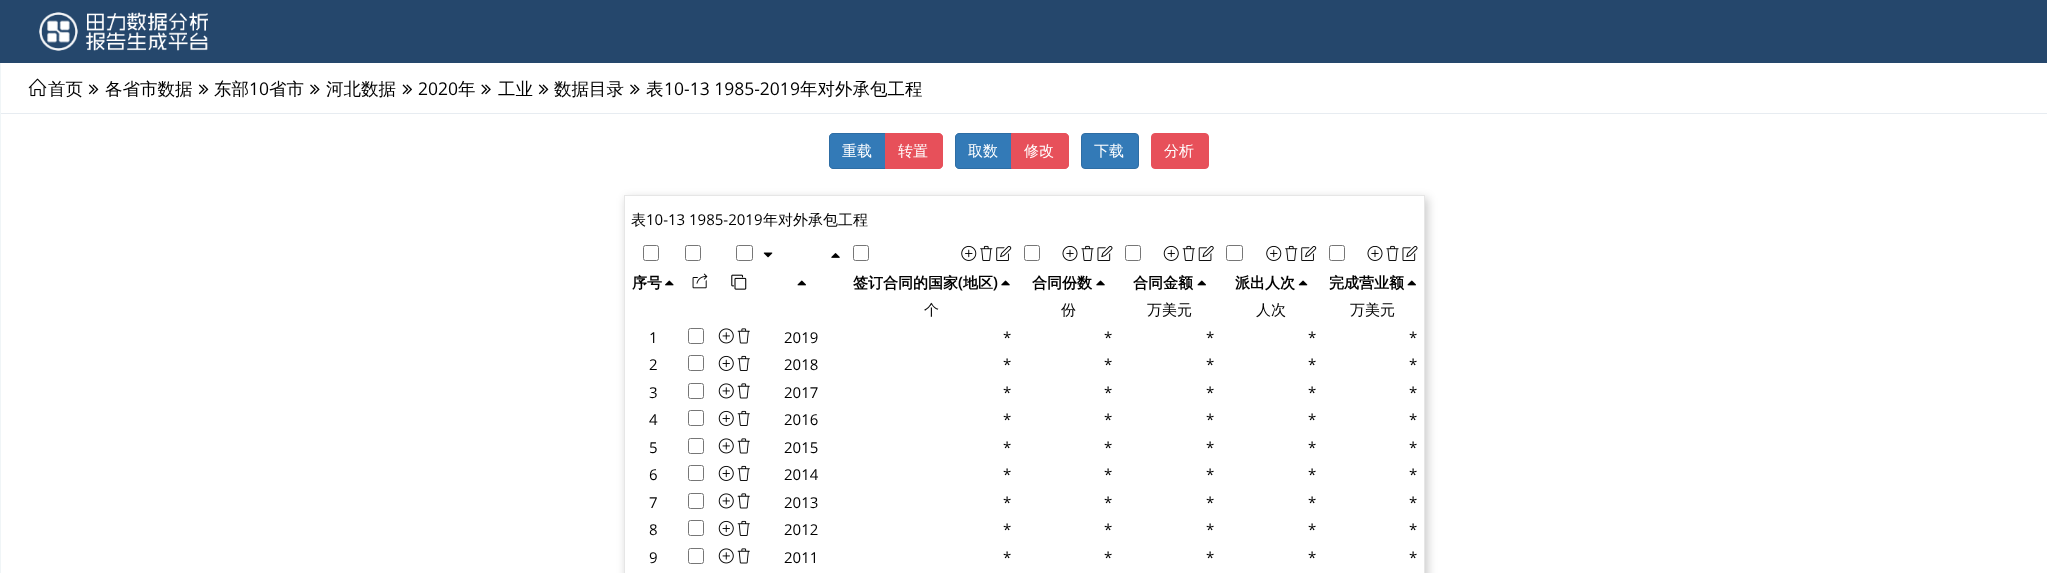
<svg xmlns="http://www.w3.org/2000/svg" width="2047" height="573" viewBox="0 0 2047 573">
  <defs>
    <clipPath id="clip1"><path d="M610 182H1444V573H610ZM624 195H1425V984H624Z" clip-rule="evenodd"/></clipPath>
    <filter id="blur1" x="-50%" y="-200%" width="200%" height="500%"><feGaussianBlur stdDeviation="5"/></filter>
  </defs>
  <rect width="100%" height="100%" fill="#ffffff"/>
  <rect x="0" y="0" width="2047" height="63" fill="#25476c"/>
  <image x="39" y="12" width="169" height="39" href="img1.png"/>
  <rect x="0" y="63" width="1" height="510" fill="#f0f5f7"/>
  <rect x="1" y="113" width="2046" height="1" fill="#e7ecf1"/>
  <image x="28" y="78" width="19" height="19" href="img2.png"/>
  <text x="48" y="95" font-family="WenQuanYi Zen Hei" font-size="17.5" font-weight="500" fill="#000000">首页</text>
  <image x="88" y="84" width="11" height="11" href="img3.png"/>
  <text x="105" y="95" font-family="WenQuanYi Zen Hei" font-size="17.5" font-weight="500" fill="#000000">各省市数据</text>
  <image x="198" y="84" width="11" height="11" href="img3.png"/>
  <text x="214" y="95" font-family="WenQuanYi Zen Hei" font-size="17.5" font-weight="500" fill="#000000">东部</text>
  <text x="249" y="95" font-family="Open Sans" font-size="17.5" fill="#000000">10</text>
  <text x="269" y="95" font-family="WenQuanYi Zen Hei" font-size="17.5" font-weight="500" fill="#000000">省市</text>
  <image x="310" y="84" width="10" height="11" href="img4.png"/>
  <text x="326" y="95" font-family="WenQuanYi Zen Hei" font-size="17.5" font-weight="500" fill="#000000">河北数据</text>
  <image x="402" y="84" width="10" height="11" href="img5.png"/>
  <text x="418" y="95" font-family="Open Sans" font-size="17.5" fill="#000000">2020</text>
  <text x="458" y="95" font-family="WenQuanYi Zen Hei" font-size="17.5" font-weight="500" fill="#000000">年</text>
  <image x="481" y="84" width="10" height="11" href="img6.png"/>
  <text x="498" y="95" font-family="WenQuanYi Zen Hei" font-size="17.5" font-weight="500" fill="#000000">工业</text>
  <image x="538" y="84" width="11" height="11" href="img3.png"/>
  <text x="554" y="95" font-family="WenQuanYi Zen Hei" font-size="17.5" font-weight="500" fill="#000000">数据目录</text>
  <image x="630" y="84" width="10" height="11" href="img4.png"/>
  <text x="646" y="95" font-family="WenQuanYi Zen Hei" font-size="17.5" font-weight="500" fill="#000000">表</text>
  <text x="664" y="95" font-family="Open Sans" font-size="17.5" fill="#000000">10-13 1985-2019</text>
  <text x="800" y="95" font-family="WenQuanYi Zen Hei" font-size="17.5" font-weight="500" fill="#000000">年对外承包工程</text>
  <path d="M833 133.5H885.5V168.5H833C831 168.5 829.5 167 829.5 165V137C829.5 135 831 133.5 833 133.5Z" fill="#337ab7" stroke="#2e6da4"/>
  <text x="842" y="156" font-family="WenQuanYi Zen Hei" font-size="15" font-weight="500" fill="#ffffff">重载</text>
  <path d="M885.5 133.5H939C941 133.5 942.5 135 942.5 137V165C942.5 167 941 168.5 939 168.5H885.5Z" fill="#e7505a" stroke="#e7505a"/>
  <text x="898" y="156" font-family="WenQuanYi Zen Hei" font-size="15" font-weight="500" fill="#ffffff">转置</text>
  <path d="M959 133.5H1012.5V168.5H959C957 168.5 955.5 167 955.5 165V137C955.5 135 957 133.5 959 133.5Z" fill="#337ab7" stroke="#2e6da4"/>
  <text x="968" y="156" font-family="WenQuanYi Zen Hei" font-size="15" font-weight="500" fill="#ffffff">取数</text>
  <path d="M1011.5 133.5H1065C1067 133.5 1068.5 135 1068.5 137V165C1068.5 167 1067 168.5 1065 168.5H1011.5Z" fill="#e7505a" stroke="#e7505a"/>
  <text x="1024" y="156" font-family="WenQuanYi Zen Hei" font-size="15" font-weight="500" fill="#ffffff">修改</text>
  <rect x="1081.5" y="133.5" width="57" height="35" rx="3.5" fill="#337ab7" stroke="#2e6da4"/>
  <text x="1094" y="156" font-family="WenQuanYi Zen Hei" font-size="15" font-weight="500" fill="#ffffff">下载</text>
  <rect x="1151.5" y="133.5" width="57" height="35" rx="3.5" fill="#e7505a" stroke="#e7505a"/>
  <text x="1164" y="156" font-family="WenQuanYi Zen Hei" font-size="15" font-weight="500" fill="#ffffff">分析</text>
  <g clip-path="url(#clip1)">
    <rect x="626" y="198" width="802" height="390" fill="#000000" fill-opacity="0.2" filter="url(#blur1)"/>
  </g>
  <rect x="624.5" y="195.5" width="800" height="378" fill="none" stroke="#e6e6e6"/>
  <text x="631" y="225" font-family="WenQuanYi Zen Hei" font-size="15" font-weight="500" fill="#000000">表</text>
  <text x="646" y="225" font-family="Open Sans" font-size="15" fill="#000000">10-13 1985-2019</text>
  <text x="763" y="225" font-family="WenQuanYi Zen Hei" font-size="15" font-weight="500" fill="#000000">年对外承包工程</text>
  <rect x="643.5" y="245.5" width="15" height="15" rx="2" fill="none" stroke="#767676"/>
  <rect x="685.5" y="245.5" width="15" height="15" rx="2" fill="none" stroke="#767676"/>
  <rect x="736.5" y="245.5" width="16" height="15" rx="2" fill="none" stroke="#767676"/>
  <image x="763" y="252" width="10" height="6" href="img7.png"/>
  <image x="831" y="253" width="9" height="5" href="img8.png"/>
  <rect x="853.5" y="245.5" width="15" height="15" rx="2" fill="none" stroke="#767676"/>
  <image x="961" y="245" width="16" height="16" href="img9.png"/>
  <image x="980" y="245" width="13" height="16" href="img10.png"/>
  <image x="996" y="246" width="16" height="15" href="img11.png"/>
  <rect x="1024.5" y="245.5" width="15" height="15" rx="2" fill="none" stroke="#767676"/>
  <image x="1062" y="246" width="16" height="15" href="img12.png"/>
  <image x="1081" y="245" width="13" height="16" href="img13.png"/>
  <image x="1097" y="245" width="16" height="16" href="img14.png"/>
  <rect x="1125.5" y="245.5" width="15" height="15" rx="2" fill="none" stroke="#767676"/>
  <image x="1163" y="245" width="16" height="16" href="img15.png"/>
  <image x="1182" y="245" width="13" height="16" href="img16.png"/>
  <image x="1198" y="245" width="16" height="16" href="img17.png"/>
  <rect x="1226.5" y="245.5" width="16" height="15" rx="2" fill="none" stroke="#767676"/>
  <image x="1266" y="245" width="16" height="16" href="img9.png"/>
  <image x="1285" y="245" width="13" height="16" href="img10.png"/>
  <image x="1301" y="246" width="16" height="15" href="img11.png"/>
  <rect x="1329.5" y="245.5" width="15" height="15" rx="2" fill="none" stroke="#767676"/>
  <image x="1367" y="246" width="16" height="15" href="img12.png"/>
  <image x="1386" y="245" width="13" height="16" href="img13.png"/>
  <image x="1402" y="245" width="16" height="16" href="img14.png"/>
  <text x="632" y="288" font-family="WenQuanYi Zen Hei" font-size="15" font-weight="bold" fill="#000000">序号</text>
  <image x="665" y="280" width="9" height="6" href="img18.png"/>
  <image x="692" y="273" width="16" height="16" href="img19.png"/>
  <image x="731" y="274" width="16" height="16" href="img20.png"/>
  <image x="797" y="280" width="9" height="6" href="img21.png"/>
  <text x="853" y="288" font-family="WenQuanYi Zen Hei" font-size="15" font-weight="bold" fill="#000000">签订合同的国家</text>
  <text x="958" y="288" font-family="Open Sans" font-size="15" font-weight="bold" fill="#000000">(</text>
  <text x="963" y="288" font-family="WenQuanYi Zen Hei" font-size="15" font-weight="bold" fill="#000000">地区</text>
  <text x="993" y="288" font-family="Open Sans" font-size="15" font-weight="bold" fill="#000000">)</text>
  <image x="1001" y="280" width="9" height="6" href="img22.png"/>
  <text x="1032" y="288" font-family="WenQuanYi Zen Hei" font-size="15" font-weight="bold" fill="#000000">合同份数</text>
  <image x="1096" y="280" width="9" height="6" href="img22.png"/>
  <text x="1133" y="288" font-family="WenQuanYi Zen Hei" font-size="15" font-weight="bold" fill="#000000">合同金额</text>
  <image x="1197" y="280" width="9" height="6" href="img21.png"/>
  <text x="1235" y="288" font-family="WenQuanYi Zen Hei" font-size="15" font-weight="bold" fill="#000000">派出人次</text>
  <image x="1298" y="280" width="10" height="6" href="img23.png"/>
  <text x="1329" y="288" font-family="WenQuanYi Zen Hei" font-size="15" font-weight="bold" fill="#000000">完成营业额</text>
  <image x="1407" y="280" width="9" height="6" href="img21.png"/>
  <text x="924" y="315" font-family="WenQuanYi Zen Hei" font-size="15" font-weight="500" fill="#000000">个</text>
  <text x="1061" y="315" font-family="WenQuanYi Zen Hei" font-size="15" font-weight="500" fill="#000000">份</text>
  <text x="1147" y="315" font-family="WenQuanYi Zen Hei" font-size="15" font-weight="500" fill="#000000">万美元</text>
  <text x="1256" y="315" font-family="WenQuanYi Zen Hei" font-size="15" font-weight="500" fill="#000000">人次</text>
  <text x="1350" y="315" font-family="WenQuanYi Zen Hei" font-size="15" font-weight="500" fill="#000000">万美元</text>
  <text x="649" y="343" font-family="Open Sans" font-size="15" fill="#000000">1</text>
  <rect x="688.5" y="328.5" width="15" height="15" rx="2" fill="none" stroke="#767676"/>
  <image x="718" y="328" width="16" height="16" href="img24.png"/>
  <image x="737" y="328" width="13" height="16" href="img25.png"/>
  <text x="784" y="343" font-family="Open Sans" font-size="15" fill="#000000">2019</text>
  <text x="1003" y="343" font-family="Open Sans" font-size="15" fill="#000000">*</text>
  <text x="1104" y="343" font-family="Open Sans" font-size="15" fill="#000000">*</text>
  <text x="1206" y="343" font-family="Open Sans" font-size="15" fill="#000000">*</text>
  <text x="1308" y="343" font-family="Open Sans" font-size="15" fill="#000000">*</text>
  <text x="1409" y="343" font-family="Open Sans" font-size="15" fill="#000000">*</text>
  <text x="649" y="370" font-family="Open Sans" font-size="15" fill="#000000">2</text>
  <rect x="688.5" y="355.5" width="15" height="15" rx="2" fill="none" stroke="#767676"/>
  <image x="718" y="355" width="16" height="16" href="img15.png"/>
  <image x="737" y="355" width="13" height="16" href="img16.png"/>
  <text x="784" y="370" font-family="Open Sans" font-size="15" fill="#000000">2018</text>
  <text x="1003" y="370" font-family="Open Sans" font-size="15" fill="#000000">*</text>
  <text x="1104" y="370" font-family="Open Sans" font-size="15" fill="#000000">*</text>
  <text x="1206" y="370" font-family="Open Sans" font-size="15" fill="#000000">*</text>
  <text x="1308" y="370" font-family="Open Sans" font-size="15" fill="#000000">*</text>
  <text x="1409" y="370" font-family="Open Sans" font-size="15" fill="#000000">*</text>
  <text x="649" y="398" font-family="Open Sans" font-size="15" fill="#000000">3</text>
  <rect x="688.5" y="383.5" width="15" height="15" rx="2" fill="none" stroke="#767676"/>
  <image x="718" y="383" width="16" height="16" href="img24.png"/>
  <image x="737" y="383" width="13" height="16" href="img25.png"/>
  <text x="784" y="398" font-family="Open Sans" font-size="15" fill="#000000">2017</text>
  <text x="1003" y="398" font-family="Open Sans" font-size="15" fill="#000000">*</text>
  <text x="1104" y="398" font-family="Open Sans" font-size="15" fill="#000000">*</text>
  <text x="1206" y="398" font-family="Open Sans" font-size="15" fill="#000000">*</text>
  <text x="1308" y="398" font-family="Open Sans" font-size="15" fill="#000000">*</text>
  <text x="1409" y="398" font-family="Open Sans" font-size="15" fill="#000000">*</text>
  <text x="649" y="425" font-family="Open Sans" font-size="15" fill="#000000">4</text>
  <rect x="688.5" y="410.5" width="15" height="15" rx="2" fill="none" stroke="#767676"/>
  <image x="718" y="410" width="16" height="16" href="img15.png"/>
  <image x="737" y="410" width="13" height="16" href="img16.png"/>
  <text x="784" y="425" font-family="Open Sans" font-size="15" fill="#000000">2016</text>
  <text x="1003" y="425" font-family="Open Sans" font-size="15" fill="#000000">*</text>
  <text x="1104" y="425" font-family="Open Sans" font-size="15" fill="#000000">*</text>
  <text x="1206" y="425" font-family="Open Sans" font-size="15" fill="#000000">*</text>
  <text x="1308" y="425" font-family="Open Sans" font-size="15" fill="#000000">*</text>
  <text x="1409" y="425" font-family="Open Sans" font-size="15" fill="#000000">*</text>
  <text x="649" y="453" font-family="Open Sans" font-size="15" fill="#000000">5</text>
  <rect x="688.5" y="438.5" width="15" height="15" rx="2" fill="none" stroke="#767676"/>
  <image x="718" y="438" width="16" height="16" href="img24.png"/>
  <image x="737" y="438" width="13" height="16" href="img25.png"/>
  <text x="784" y="453" font-family="Open Sans" font-size="15" fill="#000000">2015</text>
  <text x="1003" y="453" font-family="Open Sans" font-size="15" fill="#000000">*</text>
  <text x="1104" y="453" font-family="Open Sans" font-size="15" fill="#000000">*</text>
  <text x="1206" y="453" font-family="Open Sans" font-size="15" fill="#000000">*</text>
  <text x="1308" y="453" font-family="Open Sans" font-size="15" fill="#000000">*</text>
  <text x="1409" y="453" font-family="Open Sans" font-size="15" fill="#000000">*</text>
  <text x="649" y="480" font-family="Open Sans" font-size="15" fill="#000000">6</text>
  <rect x="688.5" y="465.5" width="15" height="15" rx="2" fill="none" stroke="#767676"/>
  <image x="718" y="465" width="16" height="16" href="img15.png"/>
  <image x="737" y="465" width="13" height="16" href="img16.png"/>
  <text x="784" y="480" font-family="Open Sans" font-size="15" fill="#000000">2014</text>
  <text x="1003" y="480" font-family="Open Sans" font-size="15" fill="#000000">*</text>
  <text x="1104" y="480" font-family="Open Sans" font-size="15" fill="#000000">*</text>
  <text x="1206" y="480" font-family="Open Sans" font-size="15" fill="#000000">*</text>
  <text x="1308" y="480" font-family="Open Sans" font-size="15" fill="#000000">*</text>
  <text x="1409" y="480" font-family="Open Sans" font-size="15" fill="#000000">*</text>
  <text x="649" y="508" font-family="Open Sans" font-size="15" fill="#000000">7</text>
  <rect x="688.5" y="493.5" width="15" height="15" rx="2" fill="none" stroke="#767676"/>
  <image x="718" y="493" width="16" height="16" href="img24.png"/>
  <image x="737" y="493" width="13" height="16" href="img25.png"/>
  <text x="784" y="508" font-family="Open Sans" font-size="15" fill="#000000">2013</text>
  <text x="1003" y="508" font-family="Open Sans" font-size="15" fill="#000000">*</text>
  <text x="1104" y="508" font-family="Open Sans" font-size="15" fill="#000000">*</text>
  <text x="1206" y="508" font-family="Open Sans" font-size="15" fill="#000000">*</text>
  <text x="1308" y="508" font-family="Open Sans" font-size="15" fill="#000000">*</text>
  <text x="1409" y="508" font-family="Open Sans" font-size="15" fill="#000000">*</text>
  <text x="649" y="535" font-family="Open Sans" font-size="15" fill="#000000">8</text>
  <rect x="688.5" y="520.5" width="15" height="15" rx="2" fill="none" stroke="#767676"/>
  <image x="718" y="520" width="16" height="16" href="img15.png"/>
  <image x="737" y="520" width="13" height="16" href="img16.png"/>
  <text x="784" y="535" font-family="Open Sans" font-size="15" fill="#000000">2012</text>
  <text x="1003" y="535" font-family="Open Sans" font-size="15" fill="#000000">*</text>
  <text x="1104" y="535" font-family="Open Sans" font-size="15" fill="#000000">*</text>
  <text x="1206" y="535" font-family="Open Sans" font-size="15" fill="#000000">*</text>
  <text x="1308" y="535" font-family="Open Sans" font-size="15" fill="#000000">*</text>
  <text x="1409" y="535" font-family="Open Sans" font-size="15" fill="#000000">*</text>
  <text x="649" y="563" font-family="Open Sans" font-size="15" fill="#000000">9</text>
  <rect x="688.5" y="548.5" width="15" height="15" rx="2" fill="none" stroke="#767676"/>
  <image x="718" y="548" width="16" height="16" href="img24.png"/>
  <image x="737" y="548" width="13" height="16" href="img25.png"/>
  <text x="784" y="563" font-family="Open Sans" font-size="15" fill="#000000">2011</text>
  <text x="1003" y="563" font-family="Open Sans" font-size="15" fill="#000000">*</text>
  <text x="1104" y="563" font-family="Open Sans" font-size="15" fill="#000000">*</text>
  <text x="1206" y="563" font-family="Open Sans" font-size="15" fill="#000000">*</text>
  <text x="1308" y="563" font-family="Open Sans" font-size="15" fill="#000000">*</text>
  <text x="1409" y="563" font-family="Open Sans" font-size="15" fill="#000000">*</text>
</svg>
